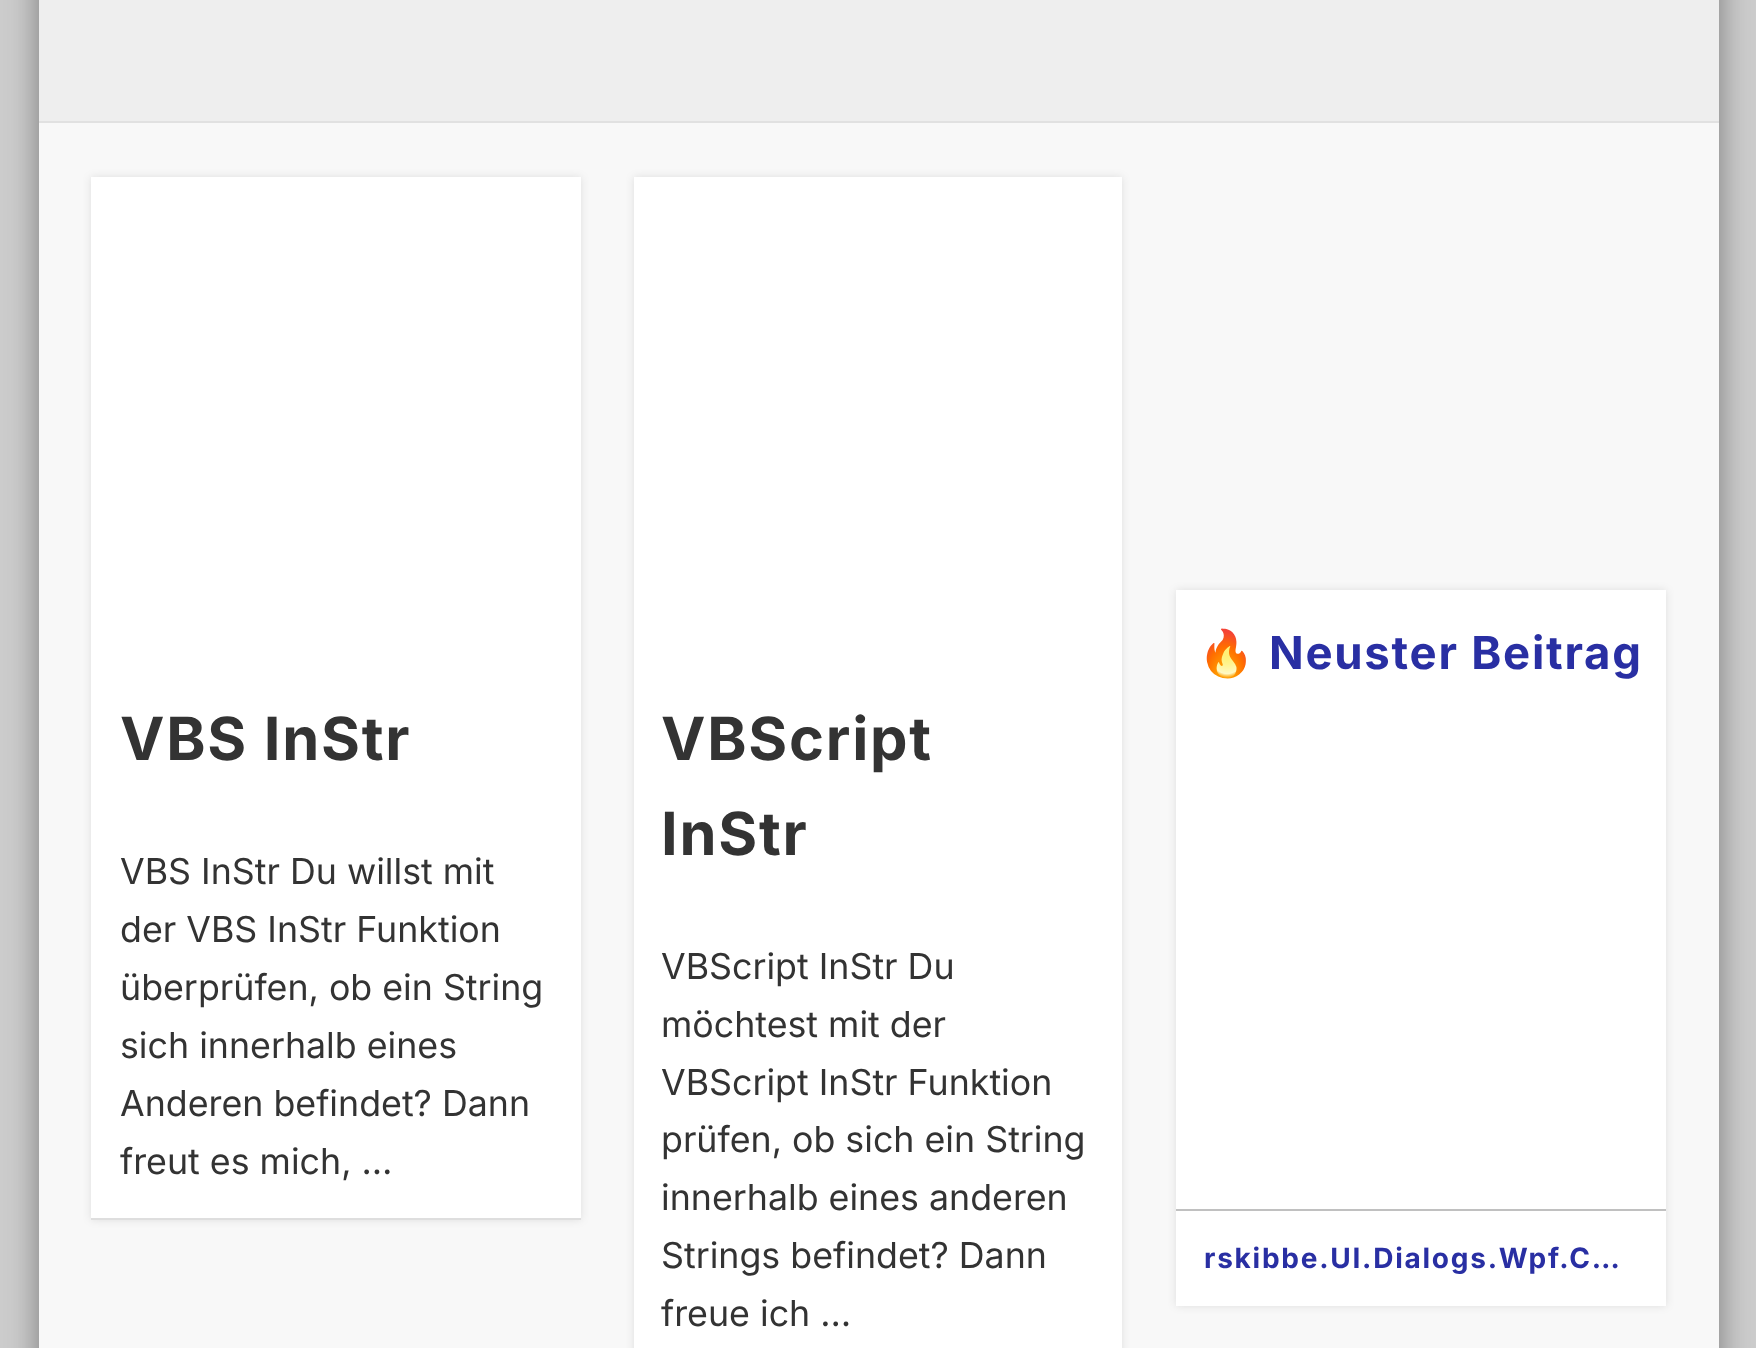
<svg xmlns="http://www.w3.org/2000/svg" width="1756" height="1348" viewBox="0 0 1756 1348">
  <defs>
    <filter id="blur1" x="-50%" y="-200%" width="200%" height="500%"><feGaussianBlur stdDeviation="16"/></filter>
    <filter id="blur2" x="-50%" y="-200%" width="200%" height="500%"><feGaussianBlur stdDeviation="4.5"/></filter>
  </defs>
  <rect width="100%" height="100%" fill="#cccccc"/>
  <rect x="39" y="-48" width="1680" height="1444" fill="#000000" fill-opacity="0.4" filter="url(#blur1)"/>
  <rect x="39" y="123" width="1680" height="1225" fill="#f8f8f8"/>
  <rect x="39" y="0" width="1680" height="121" fill="#eeeeee"/>
  <rect x="39" y="121" width="1680" height="2" fill="#e1e1e1"/>
  <rect x="91" y="177" width="490" height="1043" fill="#000000" fill-opacity="0.1" filter="url(#blur2)"/>
  <rect x="91" y="177" width="490" height="1041" fill="#ffffff"/>
  <rect x="91" y="1218" width="490" height="2" fill="#dedede"/>
  <text x="120" y="760" font-family="Inter" font-size="59.5" font-weight="bold" letter-spacing="1.75" fill="#333333">VBS InStr</text>
  <text x="120" y="884" font-family="Inter" font-size="35.75" fill="#333333">VBS InStr Du willst mit</text>
  <text x="120" y="942" font-family="Inter" font-size="35.75" fill="#333333">der VBS InStr Funktion</text>
  <text x="120" y="1000" font-family="Inter" font-size="35.75" fill="#333333">überprüfen, ob ein String</text>
  <text x="120" y="1058" font-family="Inter" font-size="35.75" fill="#333333">sich innerhalb eines</text>
  <text x="120" y="1116" font-family="Inter" font-size="35.75" fill="#333333">Anderen befindet? Dann</text>
  <text x="120" y="1174" font-family="Inter" font-size="35.75" fill="#333333">freut es mich, …</text>
  <rect x="634" y="177" width="488" height="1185" fill="#000000" fill-opacity="0.1" filter="url(#blur2)"/>
  <rect x="634" y="177" width="488" height="1171" fill="#ffffff"/>
  <text x="661" y="760" font-family="Inter" font-size="59.5" font-weight="bold" letter-spacing="1.75" fill="#333333">VBScript</text>
  <text x="661" y="855" font-family="Inter" font-size="59.5" font-weight="bold" letter-spacing="1.75" fill="#333333">InStr</text>
  <text x="661" y="979" font-family="Inter" font-size="35.75" fill="#333333">VBScript InStr Du</text>
  <text x="661" y="1037" font-family="Inter" font-size="35.75" fill="#333333">möchtest mit der</text>
  <text x="661" y="1095" font-family="Inter" font-size="35.75" fill="#333333">VBScript InStr Funktion</text>
  <text x="661" y="1152" font-family="Inter" font-size="35.75" fill="#333333">prüfen, ob sich ein String</text>
  <text x="661" y="1210" font-family="Inter" font-size="35.75" fill="#333333">innerhalb eines anderen</text>
  <text x="661" y="1268" font-family="Inter" font-size="35.75" fill="#333333">Strings befindet? Dann</text>
  <text x="661" y="1326" font-family="Inter" font-size="35.75" fill="#333333">freue ich …</text>
  <rect x="1176" y="590" width="490" height="716" fill="#000000" fill-opacity="0.1" filter="url(#blur2)"/>
  <rect x="1176" y="590" width="490" height="716" fill="#ffffff"/>
  <text x="1198" y="669" font-family="Noto Color Emoji" font-size="45.5" font-weight="bold" letter-spacing="1.75" fill="#292fa3">🔥</text>
  <text x="1269" y="669" font-family="Inter" font-size="45.5" font-weight="bold" letter-spacing="1.75" fill="#292fa3">Neuster Beitrag</text>
  <rect x="1176" y="1209" width="490" height="2" fill="#c0c0c0"/>
  <text x="1204" y="1268" font-family="Inter" font-size="28" font-weight="bold" letter-spacing="1.75" fill="#292fa3">rskibbe.UI.Dialogs.Wpf.C…</text>
</svg>
